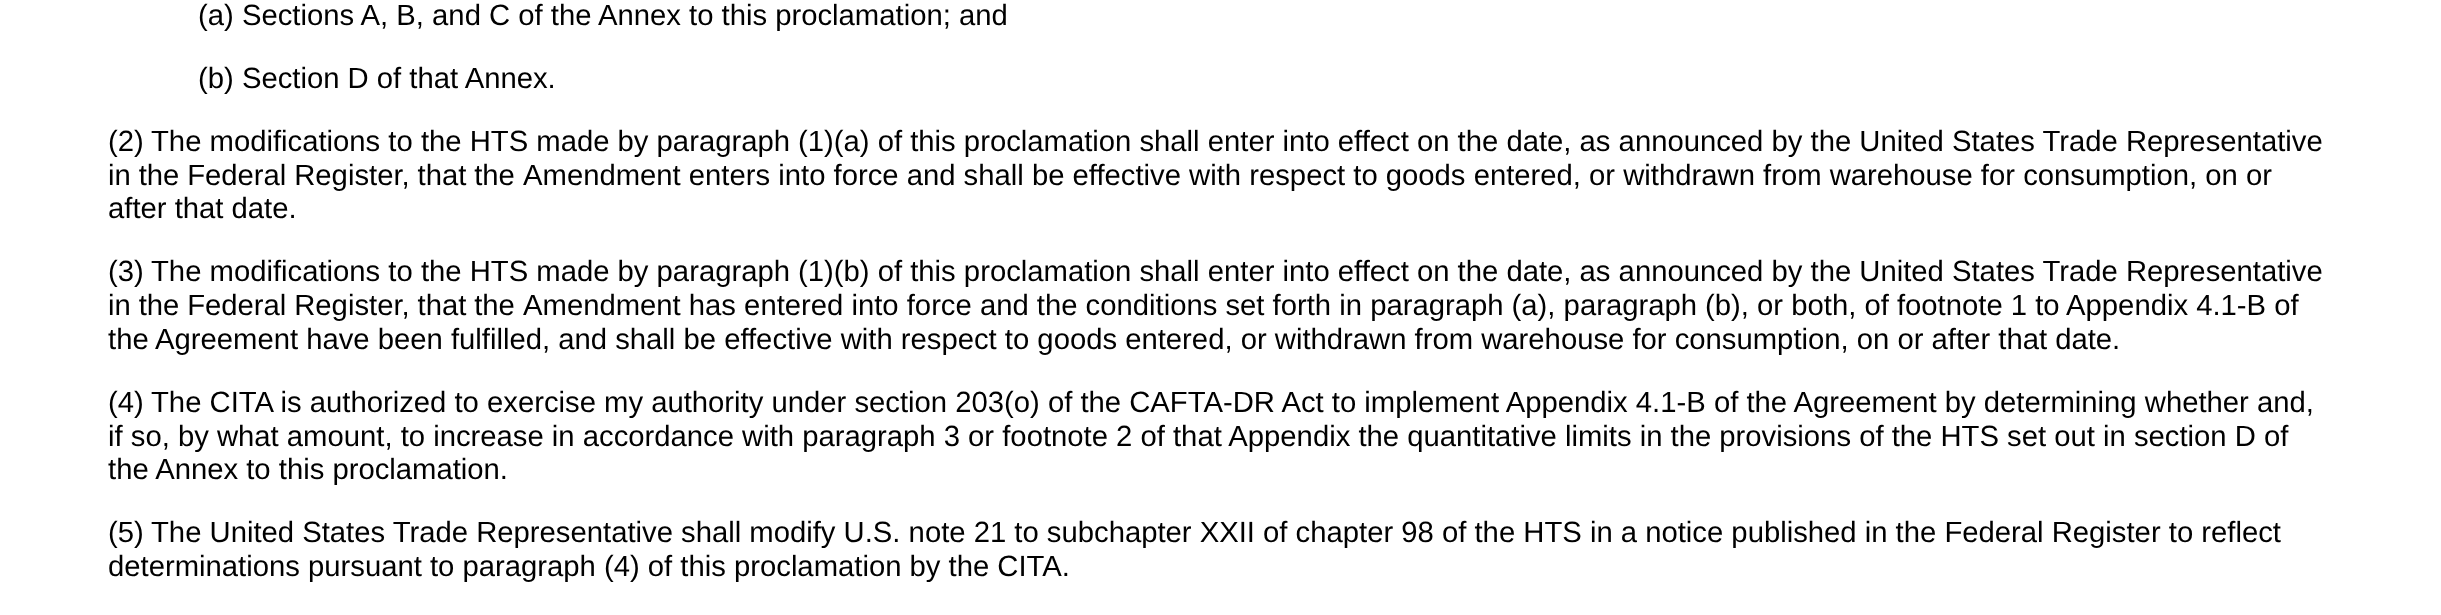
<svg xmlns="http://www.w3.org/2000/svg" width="2441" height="615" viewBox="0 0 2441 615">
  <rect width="100%" height="100%" fill="#ffffff"/>
  <text x="198" y="25" font-family="Liberation Sans" font-size="29.25" fill="#000000">(a) Sections A, B, and C of the Annex to this proclamation; and</text>
  <text x="198" y="88" font-family="Liberation Sans" font-size="29.25" fill="#000000">(b) Section D of that Annex.</text>
  <text x="108" y="151" font-family="Liberation Sans" font-size="29.25" fill="#000000">(2)</text>
  <text x="151" y="151" font-family="Liberation Sans" font-size="29.25" fill="#000000">The modifications to the HTS made by paragraph (1)(a) of this proclamation shall enter into effect on the date, as announced by the United States Trade Representative</text>
  <text x="108" y="185" word-spacing="-0.25" font-family="Liberation Sans" font-size="29.25" fill="#000000">in the Federal Register, that the</text>
  <text x="523" y="185" font-family="Liberation Sans" font-size="29.25" fill="#000000">Amendment enters into force and shall be effective with respect to goods entered, or withdrawn from warehouse for consumption, on or</text>
  <text x="108" y="218" font-family="Liberation Sans" font-size="29.25" fill="#000000">after that date.</text>
  <text x="108" y="281" font-family="Liberation Sans" font-size="29.25" fill="#000000">(3)</text>
  <text x="151" y="281" font-family="Liberation Sans" font-size="29.25" fill="#000000">The modifications to the HTS made by paragraph (1)(b) of this proclamation shall enter into effect on the date, as announced by the United States Trade Representative</text>
  <text x="108" y="315" word-spacing="-0.25" font-family="Liberation Sans" font-size="29.25" fill="#000000">in the Federal Register, that the</text>
  <text x="523" y="315" font-family="Liberation Sans" font-size="29.25" fill="#000000">Amendment has entered into force and the conditions set forth in paragraph (a), paragraph (b), or both, of footnote 1 to Appendix 4.1-B of</text>
  <text x="108" y="349" font-family="Liberation Sans" font-size="29.25" fill="#000000">the</text>
  <text x="155" y="349" font-family="Liberation Sans" font-size="29.25" fill="#000000">Agreement have been fulfilled, and shall be effective with respect to goods entered, or withdrawn from warehouse for consumption, on or after that date.</text>
  <text x="108" y="412" font-family="Liberation Sans" font-size="29.25" fill="#000000">(4)</text>
  <text x="151" y="412" font-family="Liberation Sans" font-size="29.25" fill="#000000">The CITA is authorized to exercise my authority under section 203(o) of the CAFTA-DR Act to implement Appendix 4.1-B of the Agreement by determining whether and,</text>
  <text x="108" y="446" font-family="Liberation Sans" font-size="29.25" fill="#000000">if so, by what amount, to increase in accordance with paragraph 3 or footnote 2 of that Appendix the quantitative limits in the provisions of the HTS set out in section D of</text>
  <text x="108" y="479" font-family="Liberation Sans" font-size="29.25" fill="#000000">the Annex to this proclamation.</text>
  <text x="108" y="542" font-family="Liberation Sans" font-size="29.25" fill="#000000">(5)</text>
  <text x="151" y="542" font-family="Liberation Sans" font-size="29.25" fill="#000000">The United States Trade Representative shall modify U.S. note 21 to subchapter XXII of chapter 98 of the HTS in a notice published in the Federal Register to reflect</text>
  <text x="108" y="576" font-family="Liberation Sans" font-size="29.25" fill="#000000">determinations pursuant to paragraph (4) of this proclamation by the CITA.</text>
</svg>
